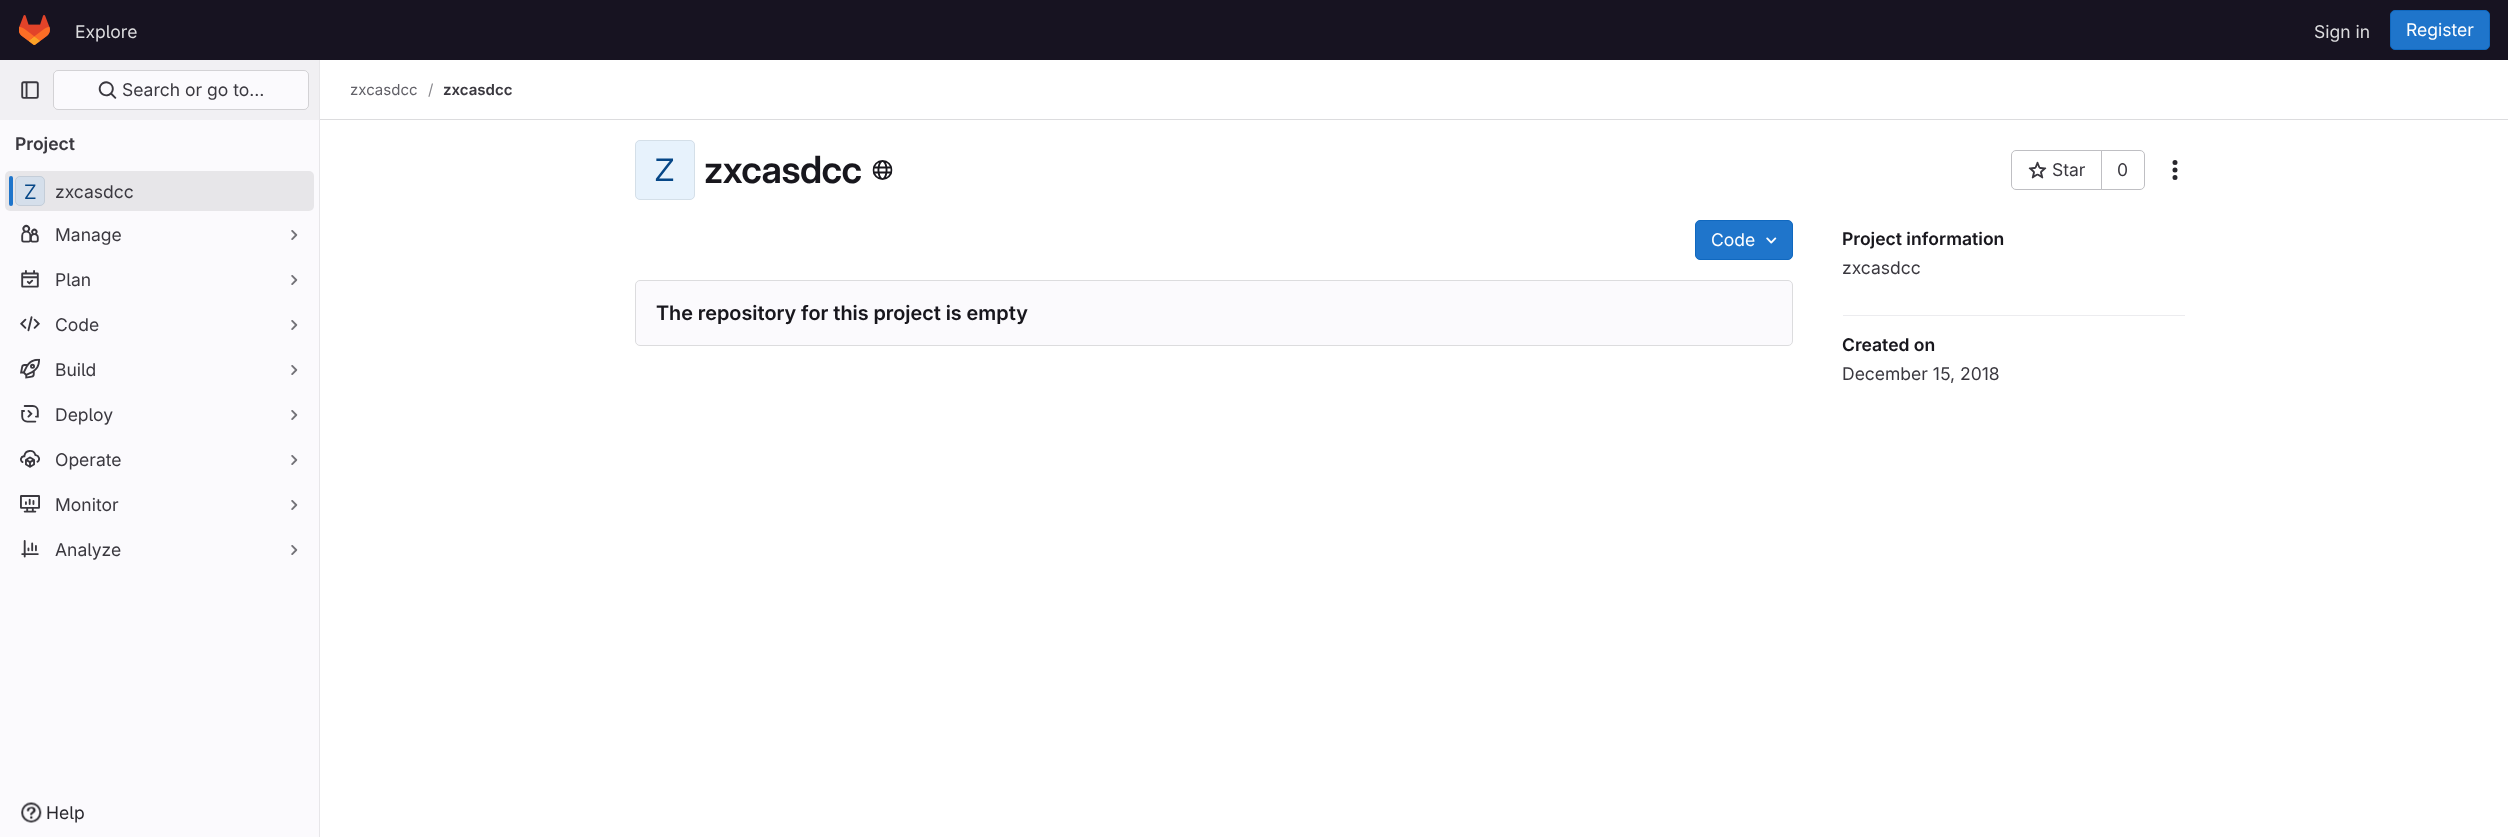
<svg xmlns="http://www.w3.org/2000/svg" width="2508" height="837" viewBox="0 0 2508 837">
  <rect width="100%" height="100%" fill="#ffffff"/>
  <rect x="0" y="0" width="2508" height="60" fill="#171321"/>
  <image x="19" y="15" width="31" height="30" href="img1.png"/>
  <text x="75" y="38" font-family="'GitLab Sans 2'" font-size="17.5" fill="#dcdcde">Explore</text>
  <text x="2314" y="38" font-family="'GitLab Sans 2'" font-size="17.5" fill="#dcdcde">Sign in</text>
  <rect x="2390.5" y="10.5" width="99" height="39" rx="4.5" fill="#1f75cb" stroke="#1068bf"/>
  <text x="2406" y="36" font-family="'GitLab Sans 2'" font-size="17.5" fill="#ffffff">Register</text>
  <rect x="0" y="120" width="319" height="717" fill="#fbfafd"/>
  <rect x="319" y="60" width="1" height="777" fill="#e7e6e9"/>
  <rect x="0" y="60" width="319" height="60" fill="#f1f0f3"/>
  <image x="21" y="81" width="18" height="18" href="img2.png"/>
  <rect x="53" y="70" width="256" height="40" rx="5" fill="#fbfafd"/>
  <rect x="53.5" y="70.5" width="255" height="39" rx="4.5" fill="none" stroke="#050506" stroke-opacity="0.16"/>
  <image x="98" y="81" width="19" height="18" href="img3.png"/>
  <text x="122" y="96" font-family="'GitLab Sans 2'" font-size="17.5" fill="#3a383f">Search or go to…</text>
  <text x="15" y="150" font-family="'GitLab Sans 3'" font-size="17.5" font-weight="600" fill="#3a383f">Project</text>
  <rect x="5" y="171" width="309" height="40" rx="5" fill="#e7e6e9"/>
  <rect x="9" y="176" width="4" height="30" rx="2" fill="#1f75cb"/>
  <rect x="15" y="176" width="30" height="30" rx="5" fill="#d5dfeb"/>
  <rect x="15.5" y="176.5" width="29" height="29" rx="4.5" fill="none" stroke="#050506" stroke-opacity="0.08"/>
  <text x="24" y="199" font-family="'GitLab Sans 3'" font-size="20" fill="#064787">Z</text>
  <text x="55" y="198" font-family="'GitLab Sans 2'" font-size="17.5" fill="#3a383f">zxcasdcc</text>
  <image x="21" y="224" width="18" height="19" href="img4.png"/>
  <text x="55" y="241" font-family="'GitLab Sans 2'" font-size="17.5" fill="#3a383f">Manage</text>
  <image x="291" y="230" width="7" height="10" href="img5.png"/>
  <image x="21" y="270" width="18" height="18" href="img6.png"/>
  <text x="55" y="286" font-family="'GitLab Sans 2'" font-size="17.5" fill="#3a383f">Plan</text>
  <image x="291" y="275" width="7" height="10" href="img5.png"/>
  <image x="20" y="316" width="20" height="16" href="img7.png"/>
  <text x="55" y="331" font-family="'GitLab Sans 2'" font-size="17.5" fill="#3a383f">Code</text>
  <image x="291" y="320" width="7" height="10" href="img5.png"/>
  <image x="20" y="358" width="20" height="21" href="img8.png"/>
  <text x="55" y="376" font-family="'GitLab Sans 2'" font-size="17.5" fill="#3a383f">Build</text>
  <image x="291" y="365" width="7" height="10" href="img5.png"/>
  <image x="21" y="405" width="18" height="18" href="img9.png"/>
  <text x="55" y="421" font-family="'GitLab Sans 2'" font-size="17.5" fill="#3a383f">Deploy</text>
  <image x="291" y="410" width="7" height="10" href="img5.png"/>
  <image x="20" y="450" width="20" height="18" href="img10.png"/>
  <text x="55" y="466" font-family="'GitLab Sans 2'" font-size="17.5" fill="#3a383f">Operate</text>
  <image x="291" y="455" width="7" height="10" href="img5.png"/>
  <image x="20" y="495" width="20" height="18" href="img11.png"/>
  <text x="55" y="511" font-family="'GitLab Sans 2'" font-size="17.5" fill="#3a383f">Monitor</text>
  <image x="291" y="500" width="7" height="10" href="img5.png"/>
  <image x="21" y="540" width="18" height="18" href="img12.png"/>
  <text x="55" y="556" font-family="'GitLab Sans 2'" font-size="17.5" fill="#3a383f">Analyze</text>
  <image x="291" y="545" width="7" height="10" href="img5.png"/>
  <image x="21" y="802" width="21" height="21" href="img13.png"/>
  <text x="46" y="819" font-family="'GitLab Sans 2'" font-size="17.5" fill="#28272d">Help</text>
  <rect x="320" y="119" width="2188" height="1" fill="#dcdcde"/>
  <text x="350" y="95" font-family="'GitLab Sans 2'" font-size="15" fill="#626168">zxcasdcc</text>
  <text x="428" y="95" font-family="'GitLab Sans 2'" font-size="15" fill="#89888d">/</text>
  <text x="443" y="95" font-family="'GitLab Sans 3'" font-size="15" font-weight="600" fill="#3a383f">zxcasdcc</text>
  <rect x="635" y="140" width="60" height="60" rx="5" fill="#e7f2fc"/>
  <rect x="635.5" y="140.5" width="59" height="59" rx="4.5" fill="none" stroke="#050506" stroke-opacity="0.08"/>
  <text x="655" y="181" font-family="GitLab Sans" font-size="31" fill="#064787">Z</text>
  <text x="704" y="183" font-family="GitLab Sans" font-size="37.5" font-weight="600" letter-spacing="-0.5" fill="#18171d">zxcasdcc</text>
  <image x="872" y="160" width="21" height="20" href="img14.png"/>
  <path d="M2016 150.5H2102.5V189.5H2016C2013.5 189.5 2011.5 187.5 2011.5 185V155C2011.5 152.5 2013.5 150.5 2016 150.5Z" fill="none" stroke="#bfbfc3"/>
  <image x="2028" y="161" width="19" height="18" href="img15.png"/>
  <text x="2052" y="176" font-family="'GitLab Sans 2'" font-size="17.5" fill="#3a383f">Star</text>
  <path d="M2101.5 150.5H2140C2142.5 150.5 2144.5 152.5 2144.5 155V185C2144.5 187.5 2142.5 189.5 2140 189.5H2101.5Z" fill="#ffffff" stroke="#bfbfc3"/>
  <text x="2117" y="176" font-family="'GitLab Sans 2'" font-size="17.5" fill="#3a383f">0</text>
  <image x="2172" y="160" width="6" height="20" href="img16.png"/>
  <rect x="1695.5" y="220.5" width="97" height="39" rx="4.5" fill="#1f75cb" stroke="#1068bf"/>
  <text x="1711" y="246" font-family="'GitLab Sans 2'" font-size="17.5" fill="#ffffff">Code</text>
  <image x="1766" y="237" width="11" height="7" href="img17.png"/>
  <rect x="635.5" y="280.5" width="1157" height="65" rx="4.5" fill="#fbfafd" stroke="#dcdcde"/>
  <text x="656" y="320" font-family="'GitLab Sans 2'" font-size="20" font-weight="600" fill="#18171d">The repository for this project is empty</text>
  <rect x="1843" y="315" width="342" height="1" fill="#ececef"/>
  <text x="1842" y="245" font-family="'GitLab Sans 3'" font-size="17.5" font-weight="600" fill="#18171d">Project information</text>
  <text x="1842" y="274" font-family="'GitLab Sans 2'" font-size="17.5" fill="#3a383f">zxcasdcc</text>
  <text x="1842" y="351" font-family="'GitLab Sans 3'" font-size="17.5" font-weight="600" fill="#18171d">Created on</text>
  <text x="1842" y="380" font-family="'GitLab Sans 2'" font-size="17.5" fill="#3a383f">December 15, 2018</text>
</svg>
